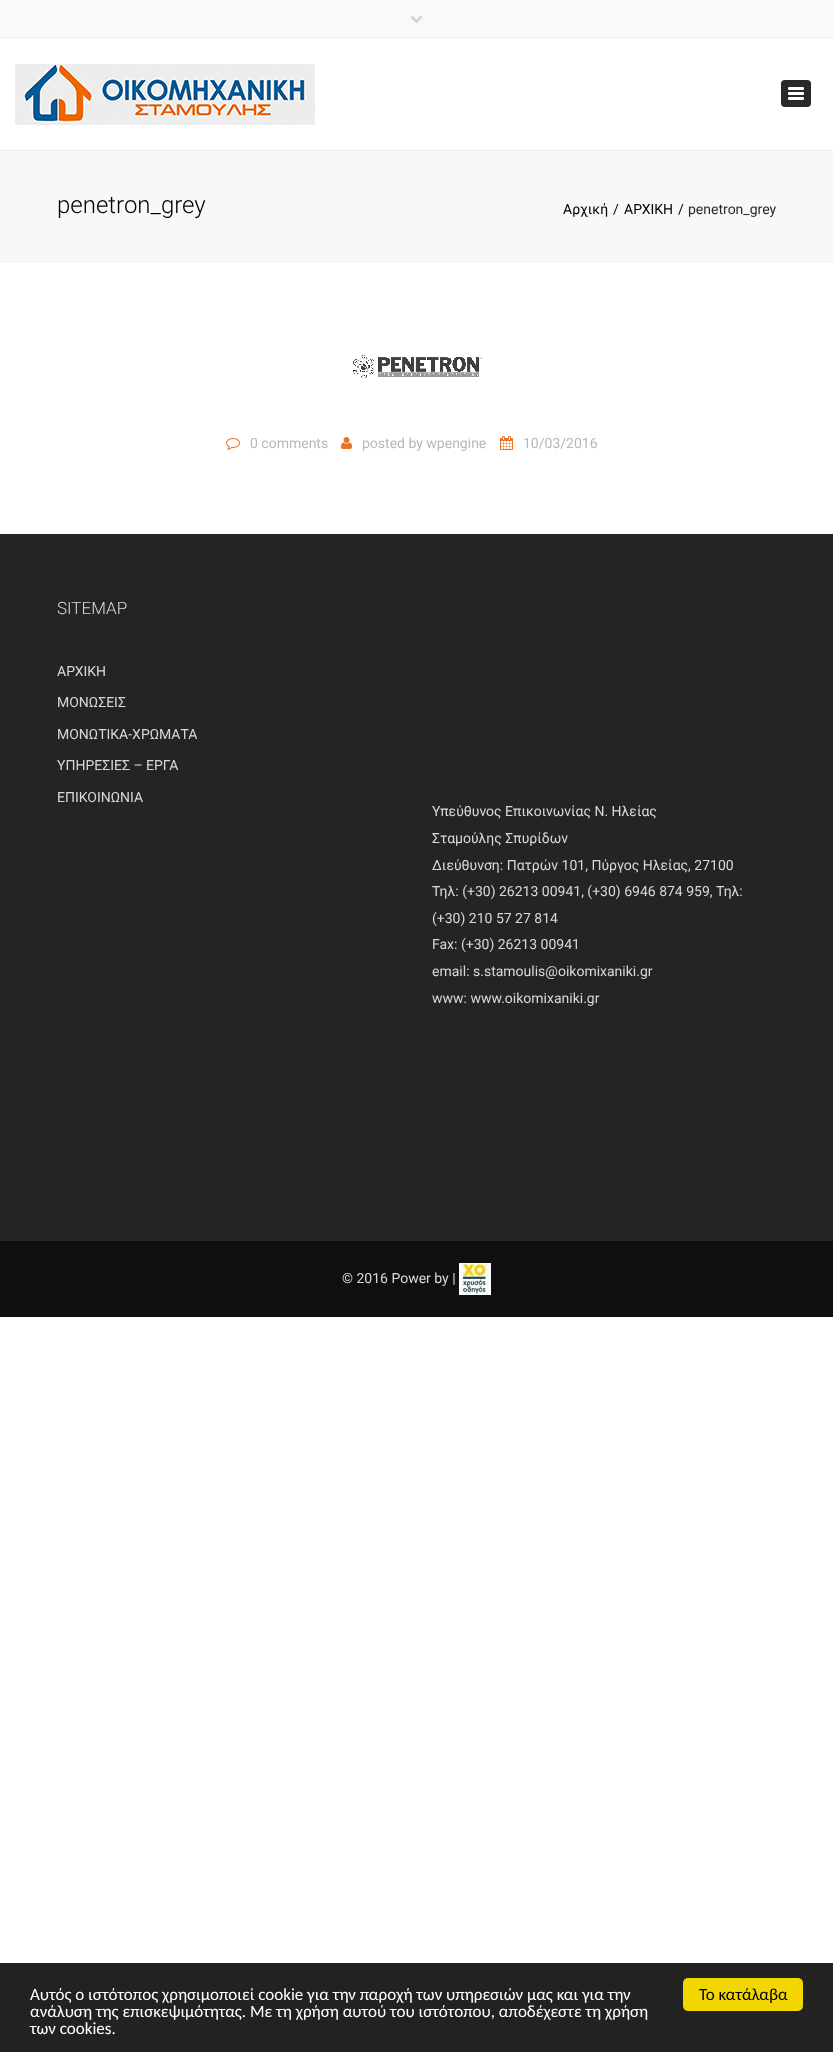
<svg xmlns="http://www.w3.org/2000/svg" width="833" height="2052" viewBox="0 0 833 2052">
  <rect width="100%" height="100%" fill="#ffffff"/>
  <rect x="0" y="0" width="833" height="37" fill="#f9f9f9"/>
  <rect x="0" y="37" width="833" height="1" fill="#ededed"/>
  <image x="410" y="15" width="13" height="9" href="img1.png"/>
  <rect x="0" y="150" width="833" height="1" fill="#ececec"/>
  <image x="15" y="64" width="300" height="61" href="img2.png"/>
  <rect x="781" y="80" width="30" height="27" rx="4" fill="#292929"/>
  <rect x="788" y="87" width="16" height="3" rx="1" fill="#ffffff"/>
  <rect x="788" y="92" width="16" height="3" rx="1" fill="#ffffff"/>
  <rect x="788" y="97" width="16" height="3" rx="1" fill="#ffffff"/>
  <rect x="0" y="151" width="833" height="110" fill="#f8f8f8"/>
  <rect x="0" y="261" width="833" height="1" fill="#ededed"/>
  <text x="57" y="213" font-family="Roboto" font-size="24" font-weight="300" fill="#000000">penetron_grey</text>
  <text x="563" y="214" font-family="Roboto" font-size="14" fill="#000000">Αρχική</text>
  <text x="613" y="214" font-family="Roboto" font-size="14" fill="#000000">/</text>
  <text x="624" y="214" font-family="Roboto" font-size="14" fill="#000000">ΑΡΧΙΚΗ</text>
  <text x="678" y="214" font-family="Roboto" font-size="14" fill="#000000">/</text>
  <text x="688" y="214" font-family="Roboto" font-size="14" fill="#292929">penetron_grey</text>
  <image x="353" y="355" width="129" height="24" href="img3.png"/>
  <image x="226" y="438" width="14" height="12" href="img4.png"/>
  <text x="250" y="448" font-family="Roboto" font-size="14" fill="#b8b8b8">0 comments</text>
  <image x="341" y="437" width="11" height="12" href="img5.png"/>
  <text x="362" y="448" font-family="Roboto" font-size="14" fill="#b8b8b8">posted by wpengine</text>
  <image x="500" y="436" width="13" height="14" href="img6.png"/>
  <text x="523" y="448" font-family="Roboto" font-size="14" fill="#b8b8b8">10/03/2016</text>
  <rect x="0" y="534" width="833" height="707" fill="#242424"/>
  <text x="57" y="614" font-family="Roboto" font-size="17" font-weight="300" fill="#d9d9d9">SITEMAP</text>
  <text x="57" y="676" font-family="Roboto" font-size="14" fill="#d9d9d9">ΑΡΧΙΚΗ</text>
  <text x="57" y="707" font-family="Roboto" font-size="14" fill="#d9d9d9">ΜΟΝΩΣΕΙΣ</text>
  <text x="57" y="739" font-family="Roboto" font-size="14" fill="#d9d9d9">ΜΟΝΩΤΙΚΑ-ΧΡΩΜΑΤΑ</text>
  <text x="57" y="770" font-family="Roboto" font-size="14" fill="#d9d9d9">ΥΠΗΡΕΣΙΕΣ – ΕΡΓΑ</text>
  <text x="57" y="802" font-family="Roboto" font-size="14" fill="#d9d9d9">ΕΠΙΚΟΙΝΩΝΙΑ</text>
  <text x="432" y="816" font-family="Roboto" font-size="14" fill="#d9d9d9">Υπεύθυνος Επικοινωνίας Ν. Ηλείας</text>
  <text x="432" y="843" font-family="Roboto" font-size="14" fill="#d9d9d9">Σταμούλης Σπυρίδων</text>
  <text x="432" y="870" font-family="Roboto" font-size="14" fill="#d9d9d9">Διεύθυνση: Πατρών 101, Πύργος Ηλείας, 27100</text>
  <text x="432" y="896" font-family="Roboto" font-size="14" fill="#d9d9d9">Τηλ: (+30) 26213 00941, (+30) 6946 874 959, Τηλ:</text>
  <text x="432" y="923" font-family="Roboto" font-size="14" fill="#d9d9d9">(+30) 210 57 27 814</text>
  <text x="432" y="949" font-family="Roboto" font-size="14" fill="#d9d9d9">Fax: (+30) 26213 00941</text>
  <text x="432" y="976" font-family="Roboto" font-size="14" fill="#d9d9d9">email: s.stamoulis@oikomixaniki.gr</text>
  <text x="432" y="1003" font-family="Roboto" font-size="14" fill="#d9d9d9">www: www.oikomixaniki.gr</text>
  <rect x="0" y="1241" width="833" height="76" fill="#0f0f0f"/>
  <text x="342" y="1283" font-family="Roboto" font-size="14" fill="#d9d9d9">© 2016 Power by |</text>
  <image x="459" y="1263" width="32" height="32" href="img7.png"/>
  <rect x="0" y="1963" width="833" height="89" fill="#222222"/>
  <text x="30" y="2000" font-family="Carlito" font-size="17" fill="#ffffff">Αυτός ο ιστότοπος χρησιμοποιεί cookie για την παροχή των υπηρεσιών μας και για την</text>
  <text x="30" y="2017" font-family="Carlito" font-size="17" fill="#ffffff">ανάλυση της επισκεψιμότητας. Με τη χρήση αυτού του ιστότοπου, αποδέχεστε τη χρήση</text>
  <text x="30" y="2034" font-family="Carlito" font-size="17" fill="#ffffff">των cookies.</text>
  <rect x="683" y="1978" width="120" height="33" rx="5" fill="#f1d600"/>
  <text x="699" y="2000" font-family="Carlito" font-size="17" fill="#000000">Το κατάλαβα</text>
</svg>
